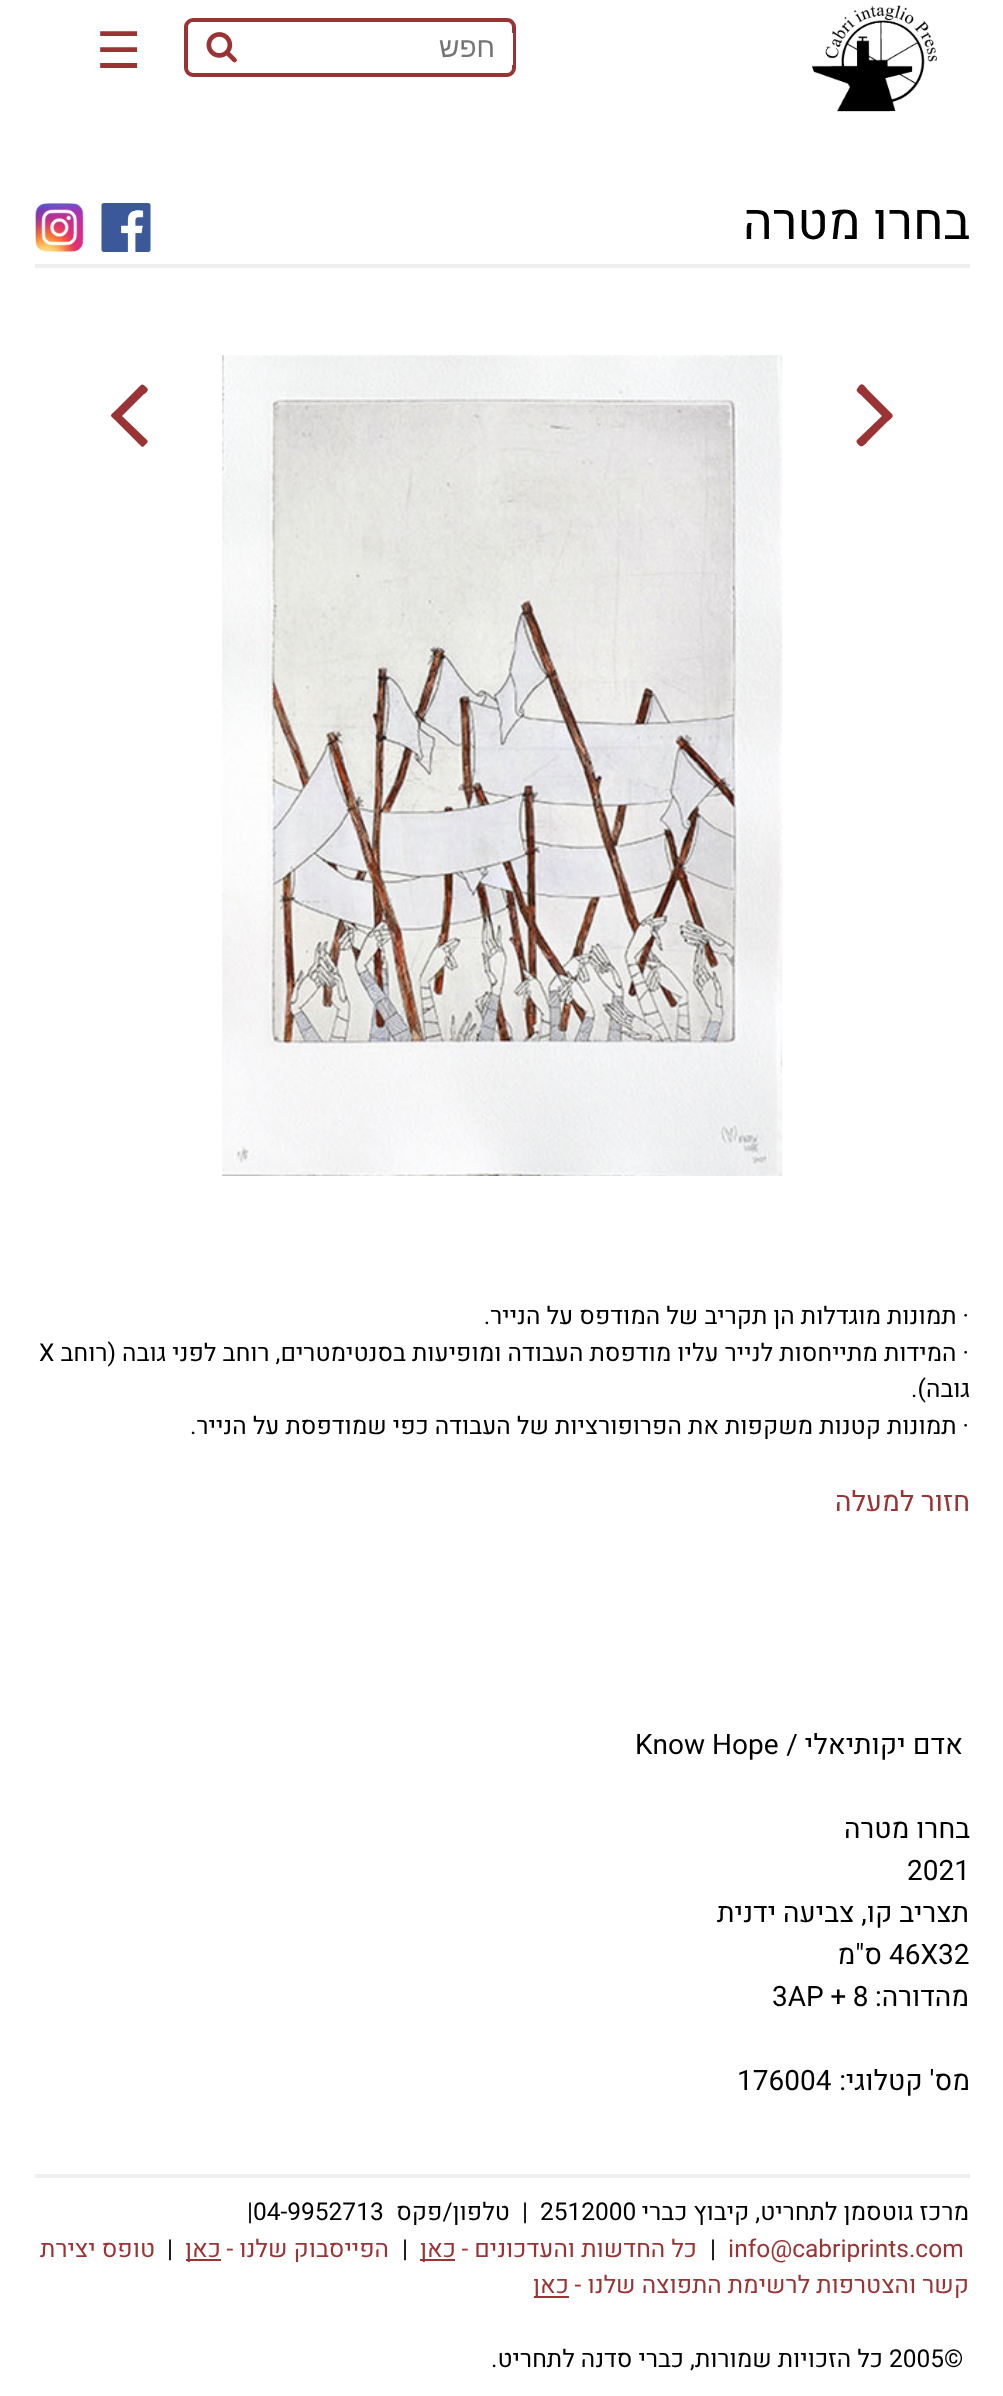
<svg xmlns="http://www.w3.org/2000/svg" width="1003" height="2396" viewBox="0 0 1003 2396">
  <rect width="100%" height="100%" fill="#ffffff"/>
  <image x="811" y="5" width="126" height="107" href="img1.png"/>
  <rect x="186" y="20" width="328" height="55" rx="7" fill="none" stroke="#9a3334" stroke-width="4"/>
  <rect x="512" y="33" width="1" height="32" fill="#ffffff"/>
  <text x="495" y="57" font-family="Liberation Sans" font-size="28" direction="rtl" fill="#757575">חפש</text>
  <image x="206" y="32" width="31" height="31" href="img2.png"/>
  <text x="96" y="68" font-family="DejaVu Sans" font-size="50.5" fill="#9a3334">☰</text>
  <text x="970" y="239" font-family="Heebo" font-size="50.5" direction="rtl" fill="#000000">בחרו מטרה</text>
  <image x="101" y="203" width="50" height="49" href="img3.png"/>
  <image x="35" y="203" width="49" height="49" href="img4.png"/>
  <rect x="35" y="264" width="935" height="4" fill="#efefef"/>
  <path d="M892 414C895 417 888 421 887 422L868 441C868 441 863 448 860 446C859 445 855 442 857 440L882 416L861 395C861 395 855 391 857 389L859 386C863 382 864 386 868 390Z" fill="#9a3334"/>
  <image x="222" y="355" width="561" height="821" href="img5.png"/>
  <path d="M147 388C150 391 144 394 143 395L122 416L147 440C149 442 146 444 145 445C144 446 143 448 141 446L117 422C109 414 109 417 117 409L141 385C143 383 146 387 147 388Z" fill="#9a3334"/>
  <text x="969" y="1324" font-family="Heebo" font-size="24.5" direction="rtl" fill="#000000">· תמונות מוגדלות הן תקריב של המודפס על הנייר.</text>
  <text x="969" y="1361" font-family="Heebo" font-size="24.5" direction="rtl" fill="#000000">· המידות מתייחסות לנייר עליו מודפסת העבודה ומופיעות בסנטימטרים, רוחב לפני גובה (רוחב</text>
  <text x="39" y="1361" font-family="Heebo" font-size="24.5" fill="#000000">X</text>
  <text x="970" y="1397" font-family="Heebo" font-size="24.5" direction="rtl" fill="#000000">גובה).</text>
  <text x="969" y="1434" font-family="Heebo" font-size="24.5" direction="rtl" fill="#000000">· תמונות קטנות משקפות את הפרופורציות של העבודה כפי שמודפסת על הנייר.</text>
  <text x="970" y="1511" font-family="Heebo" font-size="28" direction="rtl" fill="#9a3334">חזור למעלה</text>
  <text x="963" y="1754" font-family="Heebo" font-size="28" direction="rtl" fill="#000000">אדם יקותיאלי /</text>
  <text x="635" y="1754" font-family="Heebo" font-size="28" fill="#000000">Know Hope</text>
  <text x="970" y="1838" font-family="Heebo" font-size="28" direction="rtl" fill="#000000">בחרו מטרה</text>
  <text x="907" y="1880" font-family="Heebo" font-size="28" fill="#000000">2021</text>
  <text x="969" y="1922" font-family="Heebo" font-size="28" direction="rtl" fill="#000000">תצריב קו, צביעה ידנית</text>
  <text x="889" y="1964" font-family="Heebo" font-size="28" fill="#000000">46X32</text>
  <text x="882" y="1964" font-family="Heebo" font-size="28" direction="rtl" fill="#000000">ס"מ</text>
  <text x="969" y="2006" font-family="Heebo" font-size="28" direction="rtl" fill="#000000">מהדורה:</text>
  <text x="772" y="2006" font-family="Heebo" font-size="28" fill="#000000">3AP + 8</text>
  <text x="970" y="2090" font-family="Heebo" font-size="28" direction="rtl" fill="#000000">מס' קטלוגי:</text>
  <text x="737" y="2090" font-family="Heebo" font-size="28" fill="#000000">176004</text>
  <rect x="35" y="2174" width="935" height="4" fill="#efefef"/>
  <text x="969" y="2220" font-family="Heebo" font-size="24.5" direction="rtl" fill="#000000">מרכז גוטסמן לתחריט, קיבוץ כברי</text>
  <text x="540" y="2220" font-family="Heebo" font-size="24.5" fill="#000000">2512000</text>
  <text x="528" y="2220" font-family="Heebo" font-size="24.5" direction="rtl" fill="#000000" xml:space="preserve">|  טלפון/פקס</text>
  <text x="247" y="2220" font-family="Heebo" font-size="24.5" fill="#000000">|04-9952713</text>
  <text x="728" y="2257" font-family="Heebo" font-size="24.5" fill="#9a3334">info@cabriprints.com</text>
  <text x="710" y="2257" font-family="Heebo" font-size="24.5" fill="#000000">|</text>
  <text x="697" y="2257" font-family="Heebo" font-size="24.5" direction="rtl" fill="#9a3334">כל החדשות והעדכונים -</text>
  <rect x="420" y="2259" width="35" height="2" fill="#9a3334"/>
  <text x="456" y="2257" font-family="Heebo" font-size="24.5" direction="rtl" fill="#9a3334">כאן</text>
  <text x="402" y="2257" font-family="Heebo" font-size="24.5" fill="#000000">|</text>
  <text x="389" y="2257" font-family="Heebo" font-size="24.5" direction="rtl" fill="#9a3334">הפייסבוק שלנו -</text>
  <rect x="186" y="2259" width="35" height="2" fill="#9a3334"/>
  <text x="221" y="2257" font-family="Heebo" font-size="24.5" direction="rtl" fill="#9a3334">כאן</text>
  <text x="167" y="2257" font-family="Heebo" font-size="24.5" fill="#000000">|</text>
  <text x="155" y="2257" font-family="Heebo" font-size="24.5" direction="rtl" fill="#9a3334">טופס יצירת</text>
  <text x="969" y="2293" font-family="Heebo" font-size="24.5" direction="rtl" fill="#9a3334">קשר והצטרפות לרשימת התפוצה שלנו -</text>
  <rect x="534" y="2296" width="35" height="2" fill="#9a3334"/>
  <text x="569" y="2293" font-family="Heebo" font-size="24.5" direction="rtl" fill="#9a3334">כאן</text>
  <text x="889" y="2367" font-family="Heebo" font-size="24.5" fill="#000000">2005©</text>
  <text x="883" y="2367" font-family="Heebo" font-size="24.5" direction="rtl" fill="#000000">כל הזכויות שמורות, כברי סדנה לתחריט.</text>
</svg>
